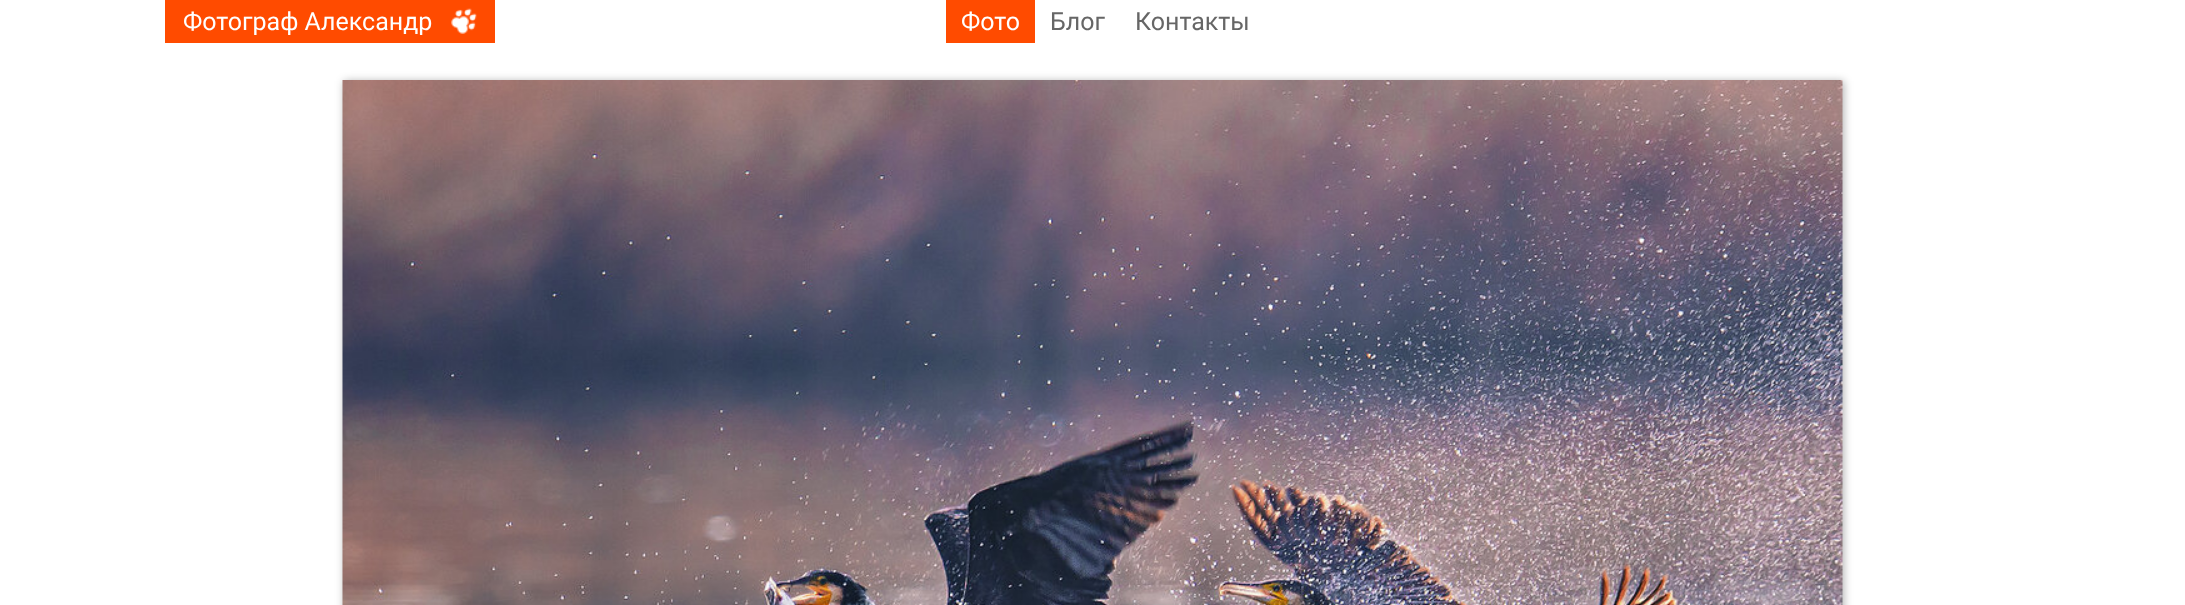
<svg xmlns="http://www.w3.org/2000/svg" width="2185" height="605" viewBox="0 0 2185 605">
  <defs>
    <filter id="blur1" x="-50%" y="-200%" width="200%" height="500%"><feGaussianBlur stdDeviation="4"/></filter>
  </defs>
  <rect width="100%" height="100%" fill="#ffffff"/>
  <rect x="165" y="0" width="330" height="43" fill="#ff4b00"/>
  <image x="451" y="8" width="26" height="26" href="img1.png"/>
  <text x="183" y="30" font-family="Roboto" font-size="25" fill="#ffffff">Фотограф Александр</text>
  <rect x="946" y="0" width="89" height="43" fill="#ff4b00"/>
  <text x="961" y="30" font-family="Roboto" font-size="25" fill="#ffffff">Фото</text>
  <text x="1050" y="30" font-family="Roboto" font-size="25" fill="#666666">Блог</text>
  <text x="1135" y="30" font-family="Roboto" font-size="25" fill="#666666">Контакты</text>
  <rect x="344" y="81" width="1500" height="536" fill="#000000" fill-opacity="0.3" filter="url(#blur1)"/>
  <image x="342" y="80" width="1501" height="525" href="img2.png"/>
</svg>
